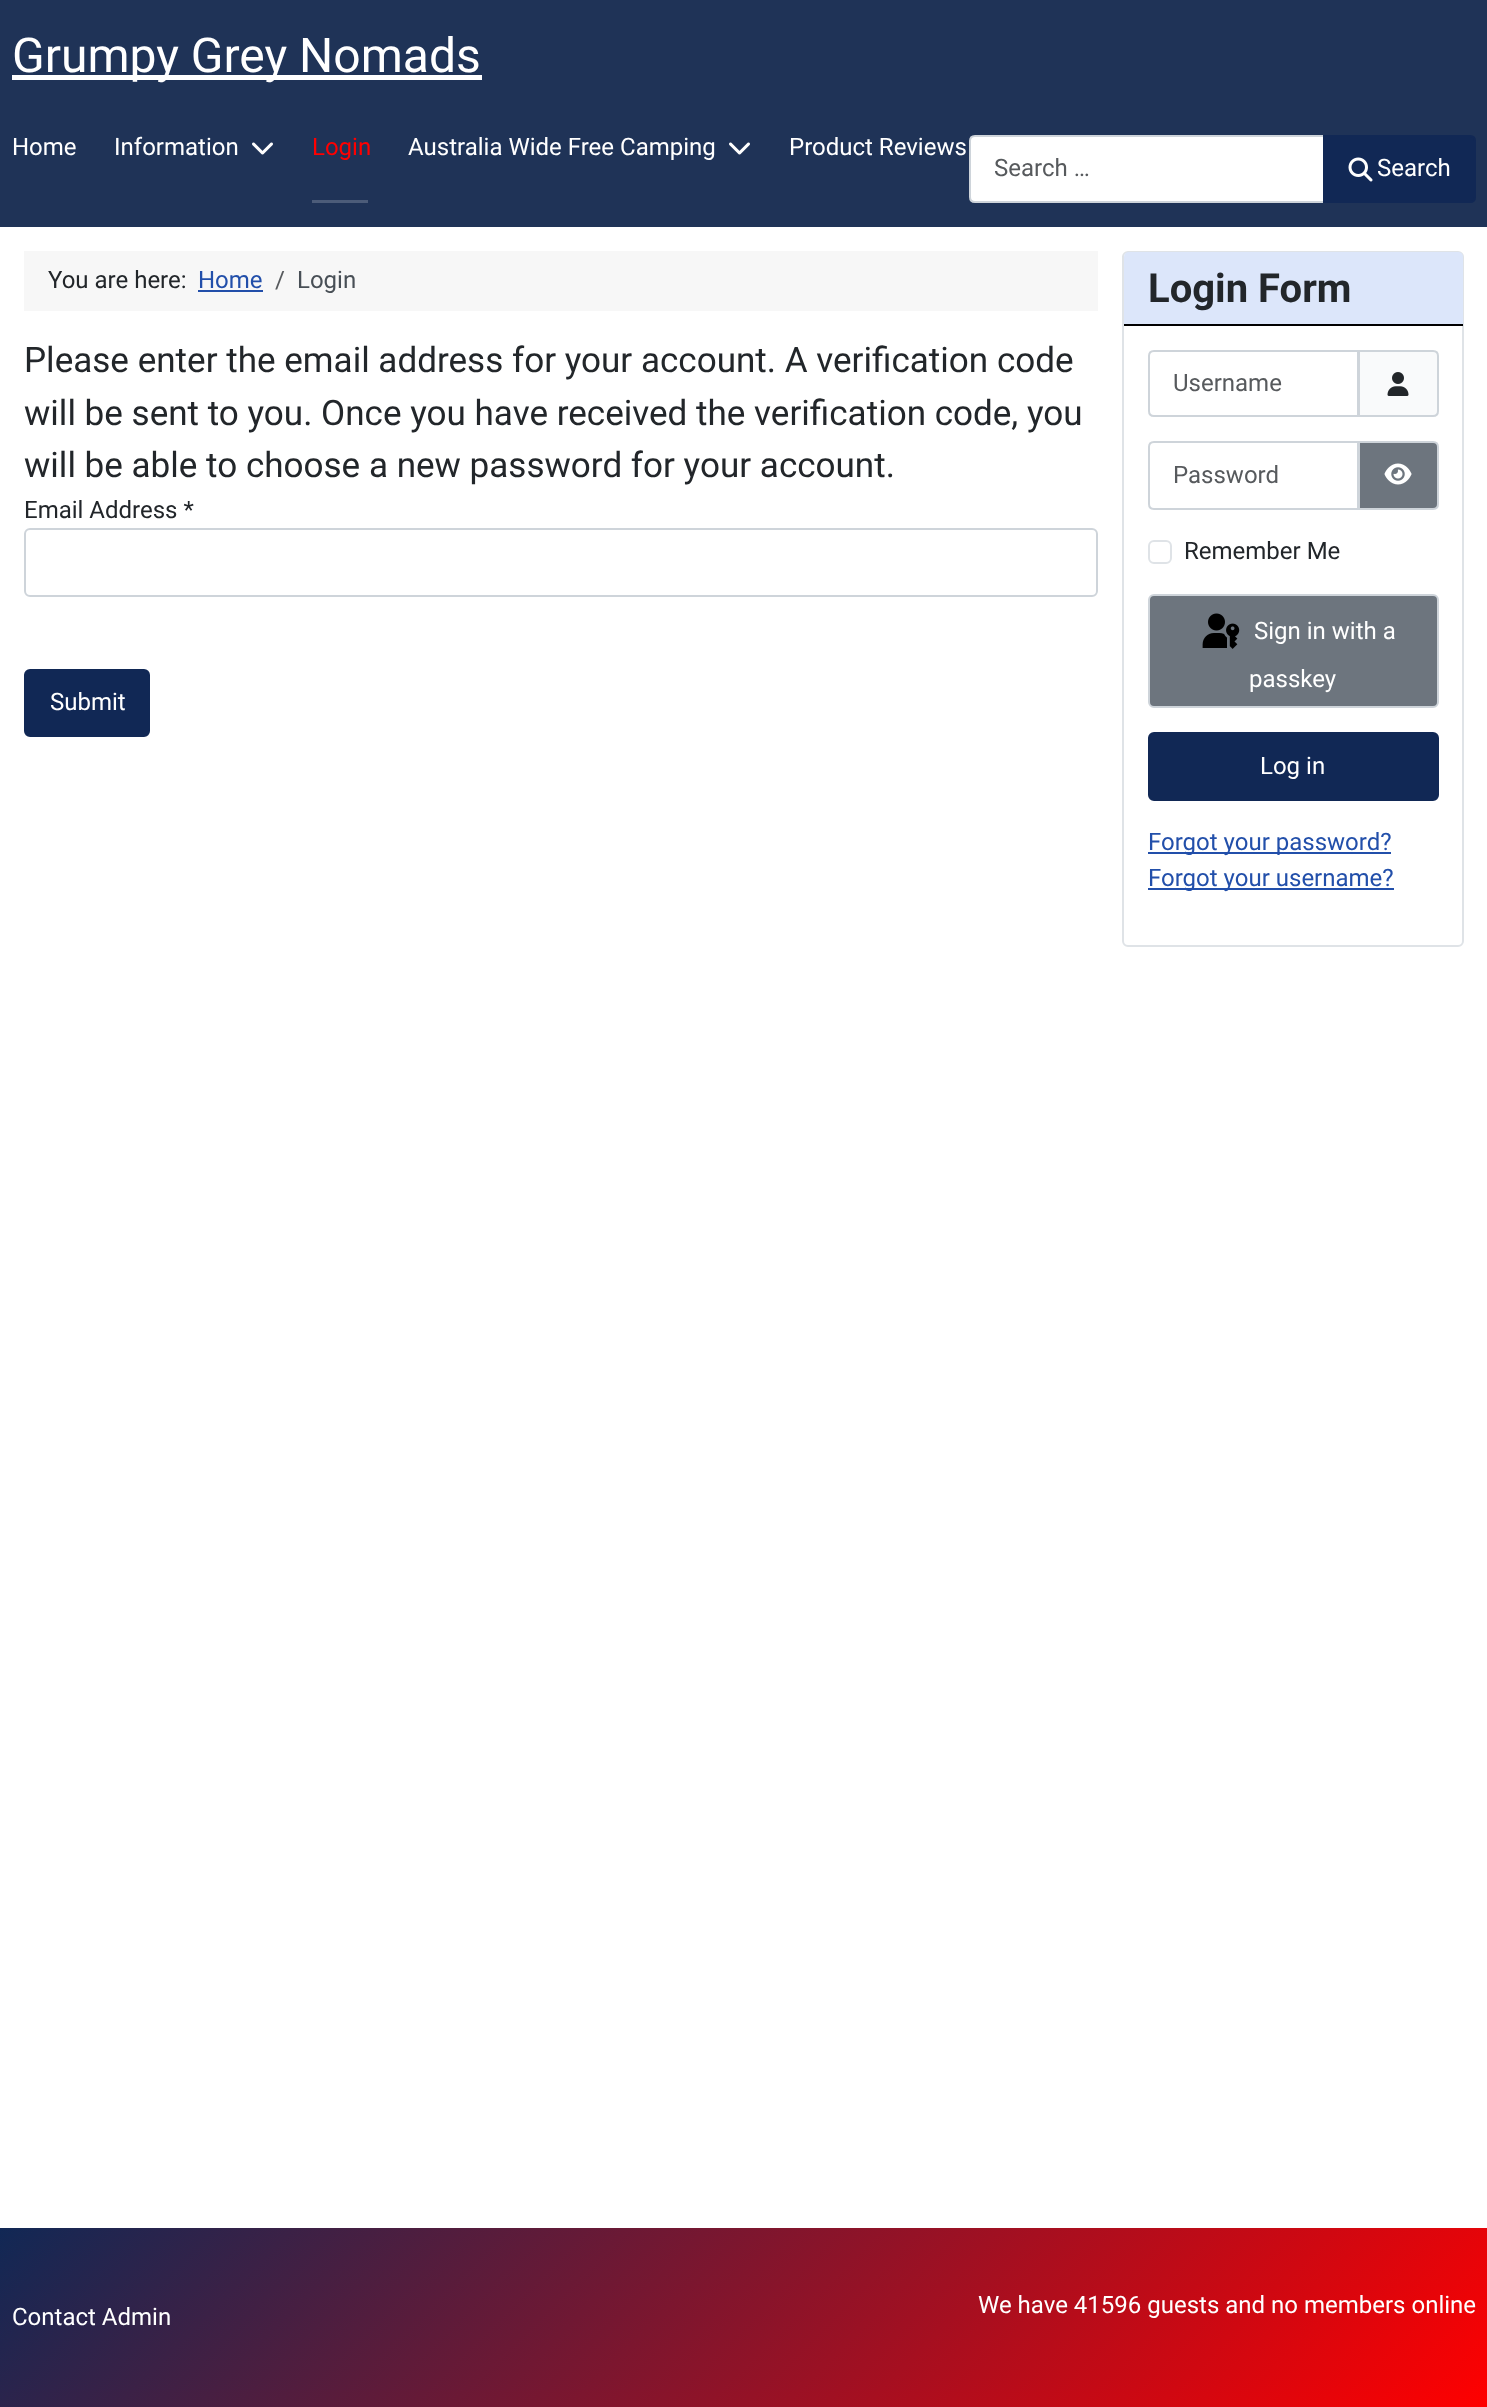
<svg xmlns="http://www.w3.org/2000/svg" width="1487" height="2407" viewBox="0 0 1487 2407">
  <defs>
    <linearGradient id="g1" gradientUnits="userSpaceOnUse" x1="327" y1="1901" x2="1161" y2="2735"><stop offset="0" stop-color="#112855"/><stop offset="1" stop-color="#ff0000"/></linearGradient>
  </defs>
  <rect width="100%" height="100%" fill="#ffffff"/>
  <rect x="0" y="0" width="1487" height="227" fill="#1f3357"/>
  <rect x="12" y="75" width="470" height="5" fill="#ffffff"/>
  <text x="12" y="72" font-family="Roboto" font-size="48" fill="#ffffff">Grumpy Grey Nomads</text>
  <text x="12" y="155" font-family="Roboto" font-size="24" fill="#ffffff">Home</text>
  <text x="114" y="155" font-family="Roboto" font-size="24" fill="#ffffff">Information</text>
  <image x="252" y="142" width="21" height="13" href="img1.png"/>
  <text x="312" y="155" font-family="Roboto" font-size="24" fill="#ff0000">Login</text>
  <rect x="312" y="200" width="56" height="3" fill="#4c5c79"/>
  <text x="408" y="155" font-family="Roboto" font-size="24" fill="#ffffff">Australia Wide Free Camping</text>
  <image x="729" y="142" width="21" height="13" href="img1.png"/>
  <text x="789" y="155" font-family="Roboto" font-size="24" fill="#ffffff">Product Reviews</text>
  <path d="M975 136H1324V202H975C972 202 970 200 970 197V141C970 138 972 136 975 136Z" fill="#ffffff" stroke="#ced4da" stroke-width="2"/>
  <text x="994" y="176" font-family="Roboto" font-size="24" fill="#575a5d">Search …</text>
  <path d="M1324 136H1470C1473 136 1475 138 1475 141V197C1475 200 1473 202 1470 202H1324Z" fill="#112855" stroke="#112855" stroke-width="2"/>
  <image x="1348" y="157" width="25" height="25" href="img2.png"/>
  <text x="1377" y="176" font-family="Roboto" font-size="24" fill="#ffffff">Search</text>
  <rect x="24" y="251" width="1074" height="60" fill="#f7f7f7"/>
  <text x="48" y="288" font-family="Roboto" font-size="24" fill="#22262a">You are here:</text>
  <text x="198" y="288" font-family="Roboto" font-size="24" fill="#224faa">Home</text>
  <rect x="198" y="290" width="65" height="2" fill="#224faa"/>
  <text x="275" y="288" font-family="Roboto" font-size="24" fill="#575a5d">/</text>
  <text x="297" y="288" font-family="Roboto" font-size="24" fill="#484f56">Login</text>
  <text x="24" y="372" font-family="Roboto" font-size="35.05" fill="#22262a">Please enter the email address for your account. A verification code</text>
  <text x="24" y="425" font-family="Roboto" font-size="35.05" fill="#22262a">will be sent to you. Once you have received the verification code, you</text>
  <text x="24" y="477" font-family="Roboto" font-size="35.05" fill="#22262a">will be able to choose a new password for your account.</text>
  <text x="24" y="518" font-family="Roboto" font-size="24" fill="#22262a">Email Address *</text>
  <rect x="25" y="529" width="1072" height="67" rx="5" fill="none" stroke="#ced4da" stroke-width="2"/>
  <rect x="25" y="670" width="124" height="66" rx="5" fill="#112855" stroke="#112855" stroke-width="2"/>
  <text x="50" y="710" font-family="Roboto" font-size="24" fill="#ffffff">Submit</text>
  <rect x="1123" y="252" width="340" height="694" rx="5" fill="none" stroke="#dfe3e7" stroke-width="2"/>
  <path d="M1129 252H1458C1461 252 1463 254 1463 257V326H1124V257C1124 254 1126 252 1129 252Z" fill="#dce6fa"/>
  <rect x="1124" y="324" width="339" height="2" fill="#000000"/>
  <text x="1148" y="302" font-family="Roboto" font-size="40" font-weight="bold" fill="#22262a">Login Form</text>
  <path d="M1359 351H1433C1436 351 1438 353 1438 356V411C1438 414 1436 416 1433 416H1359Z" fill="#f9fafb" stroke="#ced4da" stroke-width="2"/>
  <path d="M1154 351H1358V416H1154C1151 416 1149 414 1149 411V356C1149 353 1151 351 1154 351Z" fill="none" stroke="#ced4da" stroke-width="2"/>
  <text x="1173" y="391" font-family="Roboto" font-size="24" fill="#575a5d">Username</text>
  <image x="1387" y="372" width="22" height="24" href="img3.png"/>
  <path d="M1154 442H1358V509H1154C1151 509 1149 507 1149 504V447C1149 444 1151 442 1154 442Z" fill="none" stroke="#ced4da" stroke-width="2"/>
  <text x="1173" y="483" font-family="Roboto" font-size="24" fill="#575a5d">Password</text>
  <path d="M1359 442H1433C1436 442 1438 444 1438 447V504C1438 507 1436 509 1433 509H1359Z" fill="#6d757e" stroke="#ced4da" stroke-width="2"/>
  <image x="1384" y="463" width="28" height="22" href="img4.png"/>
  <rect x="1149" y="541" width="22" height="22" rx="5" fill="none" stroke="#dfe3e7" stroke-width="2"/>
  <text x="1184" y="559" font-family="Roboto" font-size="24" fill="#22262a">Remember Me</text>
  <rect x="1149" y="595" width="289" height="112" rx="5" fill="#6d757e" stroke="#ced4da" stroke-width="2"/>
  <image x="1202" y="613" width="38" height="36" href="img5.png"/>
  <text x="1254" y="639" font-family="Roboto" font-size="24" fill="#ffffff">Sign in with a</text>
  <text x="1249" y="687" font-family="Roboto" font-size="24" fill="#ffffff">passkey</text>
  <rect x="1149" y="733" width="289" height="67" rx="5" fill="#112855" stroke="#112855" stroke-width="2"/>
  <text x="1260" y="774" font-family="Roboto" font-size="24" fill="#ffffff">Log in</text>
  <rect x="1148" y="852" width="243" height="2" fill="#224faa"/>
  <text x="1148" y="850" font-family="Roboto" font-size="24" fill="#224faa">Forgot your password?</text>
  <rect x="1148" y="888" width="246" height="2" fill="#224faa"/>
  <text x="1148" y="886" font-family="Roboto" font-size="24" fill="#224faa">Forgot your username?</text>
  <rect x="0" y="2228" width="1487" height="179" fill="url(#g1)"/>
  <text x="12" y="2325" font-family="Roboto" font-size="24" fill="#ffffff">Contact Admin</text>
  <text x="978" y="2313" font-family="Roboto" font-size="24" fill="#ffffff">We have 41596 guests and no members online</text>
</svg>
